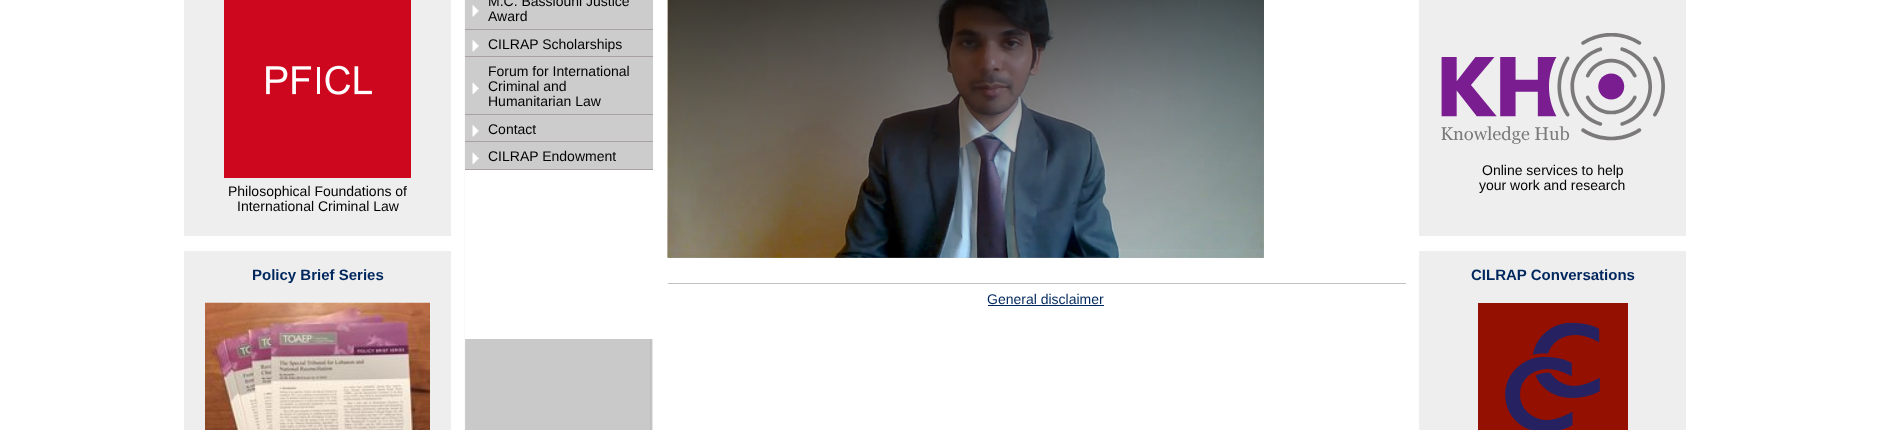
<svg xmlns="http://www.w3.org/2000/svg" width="1879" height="430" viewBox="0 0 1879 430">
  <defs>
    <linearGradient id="g1" gradientUnits="userSpaceOnUse" x1="966" y1="-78" x2="966" y2="258"><stop offset="0" stop-color="#000000" stop-opacity="0.8"/><stop offset="1" stop-color="#000000" stop-opacity="0"/></linearGradient>
  </defs>
  <rect width="100%" height="100%" fill="#ffffff"/>
  <image x="464" y="0" width="189" height="430" href="img1.png"/>
  <rect x="184" y="0" width="267" height="236" fill="#eeeeee"/>
  <image x="224" y="0" width="187" height="178" href="img2.png"/>
  <text x="228" y="196" font-family="Liberation Sans" font-size="14" fill="#000000">Philosophical Foundations of</text>
  <text x="237" y="211" font-family="Liberation Sans" font-size="14" fill="#000000">International Criminal Law</text>
  <rect x="184" y="251" width="267" height="179" fill="#eeeeee"/>
  <text x="252" y="280" font-family="Liberation Sans" font-size="15" font-weight="bold" fill="#00275d">Policy Brief Series</text>
  <image x="205" y="302" width="225" height="128" href="img3.png"/>
  <rect x="465" y="0" width="188" height="339" fill="#ffffff"/>
  <rect x="465" y="0" width="188" height="29" fill="#cccccc"/>
  <image x="472" y="5" width="7" height="12" href="img4.png"/>
  <rect x="465" y="29" width="188" height="1" fill="#a9a0a5"/>
  <text x="488" y="6" font-family="Liberation Sans" font-size="14" fill="#000000">M.C. Bassiouni Justice</text>
  <text x="488" y="21" font-family="Liberation Sans" font-size="14" fill="#000000">Award</text>
  <rect x="465" y="30" width="188" height="84" fill="#cccccc"/>
  <image x="472" y="40" width="7" height="12" href="img4.png"/>
  <rect x="465" y="56" width="188" height="1" fill="#a9a0a5"/>
  <text x="488" y="49" font-family="Liberation Sans" font-size="14" fill="#000000">CILRAP Scholarships</text>
  <image x="472" y="82" width="7" height="13" href="img5.png"/>
  <rect x="465" y="114" width="188" height="1" fill="#a9a0a5"/>
  <text x="488" y="76" font-family="Liberation Sans" font-size="14" fill="#000000">Forum for International</text>
  <text x="488" y="91" font-family="Liberation Sans" font-size="14" fill="#000000">Criminal and</text>
  <text x="488" y="106" font-family="Liberation Sans" font-size="14" fill="#000000">Humanitarian Law</text>
  <rect x="465" y="115" width="188" height="54" fill="#cccccc"/>
  <image x="472" y="125" width="7" height="12" href="img4.png"/>
  <rect x="465" y="141" width="188" height="1" fill="#a9a0a5"/>
  <text x="488" y="134" font-family="Liberation Sans" font-size="14" fill="#000000">Contact</text>
  <image x="472" y="152" width="7" height="13" href="img5.png"/>
  <rect x="465" y="169" width="188" height="1" fill="#a9a0a5"/>
  <text x="488" y="161" font-family="Liberation Sans" font-size="14" fill="#000000">CILRAP Endowment</text>
  <image x="667" y="0" width="597" height="258" href="img6.png"/>
  <image x="667" y="0" width="597" height="258" href="img7.png"/>
  <rect x="668" y="0" width="596" height="249" fill="url(#g1)"/>
  <rect x="668" y="283" width="738" height="1" fill="#c0c0c0"/>
  <text x="987" y="304" font-family="Liberation Sans" font-size="14" fill="#00275d">General disclaimer</text>
  <rect x="988" y="305" width="116" height="1" fill="#00275d"/>
  <rect x="1419" y="0" width="267" height="236" fill="#eeeeee"/>
  <image x="1441" y="33" width="224" height="111" href="img8.png"/>
  <text x="1482" y="175" font-family="Liberation Sans" font-size="14" fill="#000000">Online services to help</text>
  <text x="1479" y="190" font-family="Liberation Sans" font-size="14" fill="#000000">your work and research</text>
  <rect x="1419" y="251" width="267" height="179" fill="#eeeeee"/>
  <text x="1471" y="280" font-family="Liberation Sans" font-size="15" font-weight="bold" fill="#00275d">CILRAP Conversations</text>
  <image x="1478" y="303" width="150" height="127" href="img9.png"/>
</svg>
